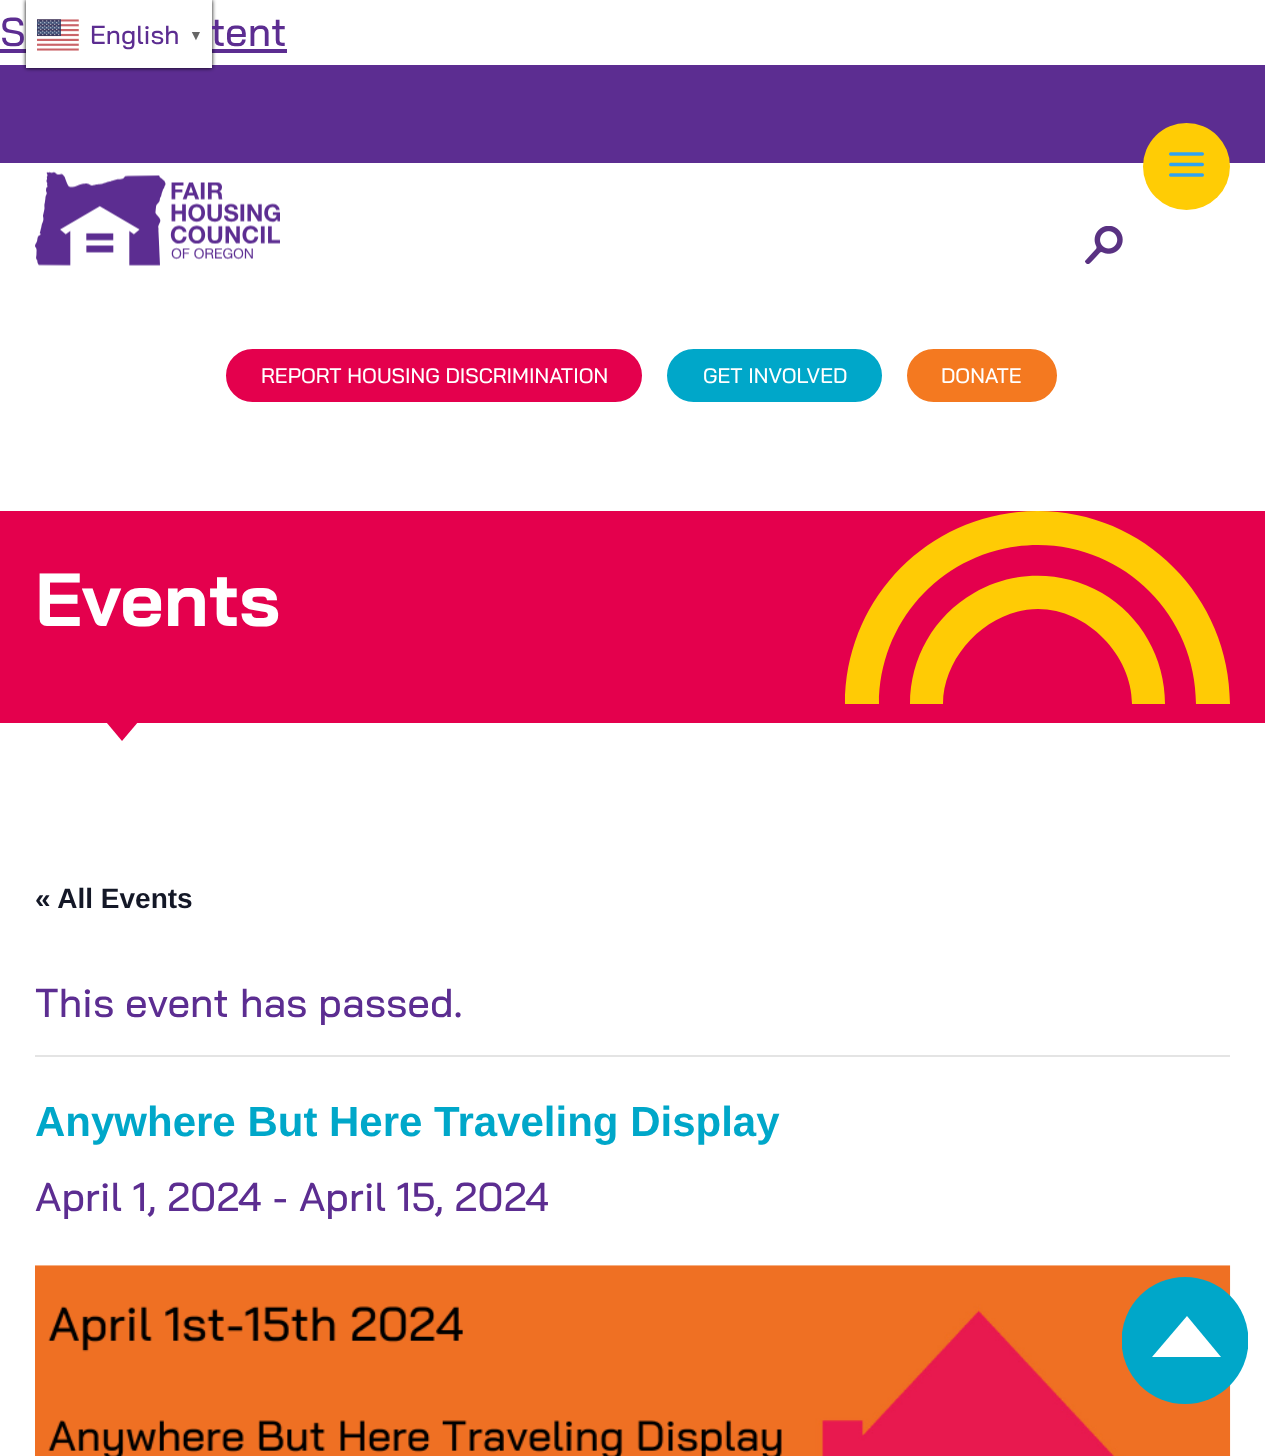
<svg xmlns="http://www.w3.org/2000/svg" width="1265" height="1456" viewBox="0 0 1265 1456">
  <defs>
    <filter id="blur1" x="-50%" y="-200%" width="200%" height="500%"><feGaussianBlur stdDeviation="2"/></filter>
    <clipPath id="clip1"><rect x="1122" y="1262" width="126" height="157"/></clipPath>
  </defs>
  <rect width="100%" height="100%" fill="#ffffff"/>
  <text x="0" y="46" font-family="Bai Jamjuree" font-size="40.25" font-weight="500" fill="#5c2d91">S</text>
  <rect x="0" y="49" width="287" height="4" fill="#5c2d91"/>
  <rect x="0" y="65" width="1265" height="98" fill="#5c2d91"/>
  <rect x="26" y="0" width="186" height="68" fill="#000000" filter="url(#blur1)"/>
  <text x="210" y="46" font-family="Bai Jamjuree" font-size="40.25" font-weight="500" fill="#5c2d91">tent</text>
  <rect x="26" y="0" width="186" height="68" fill="#ffffff"/>
  <image x="37" y="19" width="42" height="32" href="img1.png"/>
  <text x="90" y="44" font-family="Bai Jamjuree" font-size="26" font-weight="500" fill="#5c2d91">English</text>
  <text x="189" y="40" font-family="Liberation Sans" font-size="14" font-weight="bold" fill="#666666">▼</text>
  <image x="35" y="171" width="245" height="95" href="img2.png"/>
  <circle cx="1186.5" cy="166.5" r="43.5" fill="#ffcc05"/>
  <image x="1169" y="152" width="35" height="25" href="img3.png"/>
  <image x="1085" y="226" width="38" height="38" href="img4.png"/>
  <rect x="224" y="347" width="420" height="57" rx="28.5" fill="#e4004d" stroke="#ffffff" stroke-width="4"/>
  <text x="261" y="383" font-family="Bai Jamjuree" font-size="21" font-weight="500" fill="#ffffff">REPORT HOUSING DISCRIMINATION</text>
  <rect x="665" y="347" width="219" height="57" rx="28.5" fill="#00a7c9" stroke="#ffffff" stroke-width="4"/>
  <text x="703" y="383" font-family="Bai Jamjuree" font-size="21" font-weight="500" fill="#ffffff">GET INVOLVED</text>
  <rect x="905" y="347" width="154" height="57" rx="28.5" fill="#f47920" stroke="#ffffff" stroke-width="4"/>
  <text x="941" y="383" font-family="Bai Jamjuree" font-size="21" font-weight="500" fill="#ffffff">DONATE</text>
  <rect x="0" y="511" width="1265" height="212" fill="#e4004d"/>
  <text x="35" y="626" font-family="Bai Jamjuree" font-size="75" font-weight="bold" fill="#ffffff">Events</text>
  <path d="M122 741L35 637H210Z" fill="#e4004d"/>
  <path d="M1230 704C1230 597 1144 511 1038 511C931 511 845 597 845 704H879C879 616 950 545 1038 545C1125 545 1196 616 1196 704Z" fill="#ffcb05"/>
  <path d="M1165 704C1165 658 1141 616 1102 593C1062 570 1013 570 974 593C934 616 910 658 910 704H943C943 655 989 609 1038 609C1087 609 1132 655 1132 704Z" fill="#ffcb05"/>
  <text x="35" y="908" font-family="Liberation Sans" font-size="28" font-weight="bold" fill="#141827">« All Events</text>
  <rect x="35" y="1055" width="1195" height="2" fill="#e4e4e4"/>
  <text x="35" y="1017" font-family="Bai Jamjuree" font-size="40.25" font-weight="500" fill="#5c2d91">This event has passed.</text>
  <text x="35" y="1136" font-family="Liberation Sans" font-size="42" font-weight="bold" fill="#00a7c9">Anywhere But Here Traveling Display</text>
  <text x="35" y="1211" font-family="Bai Jamjuree" font-size="40.25" font-weight="500" fill="#5c2d91">April 1, 2024 - April 15, 2024</text>
  <image x="35" y="1265" width="1196" height="191" href="img5.png"/>
  <g clip-path="url(#clip1)">
    <circle cx="1185" cy="1340.5" r="63.5" fill="#00a7c9"/>
  </g>
  <path d="M1187 1316L1152 1357H1221Z" fill="#ffffff"/>
</svg>
